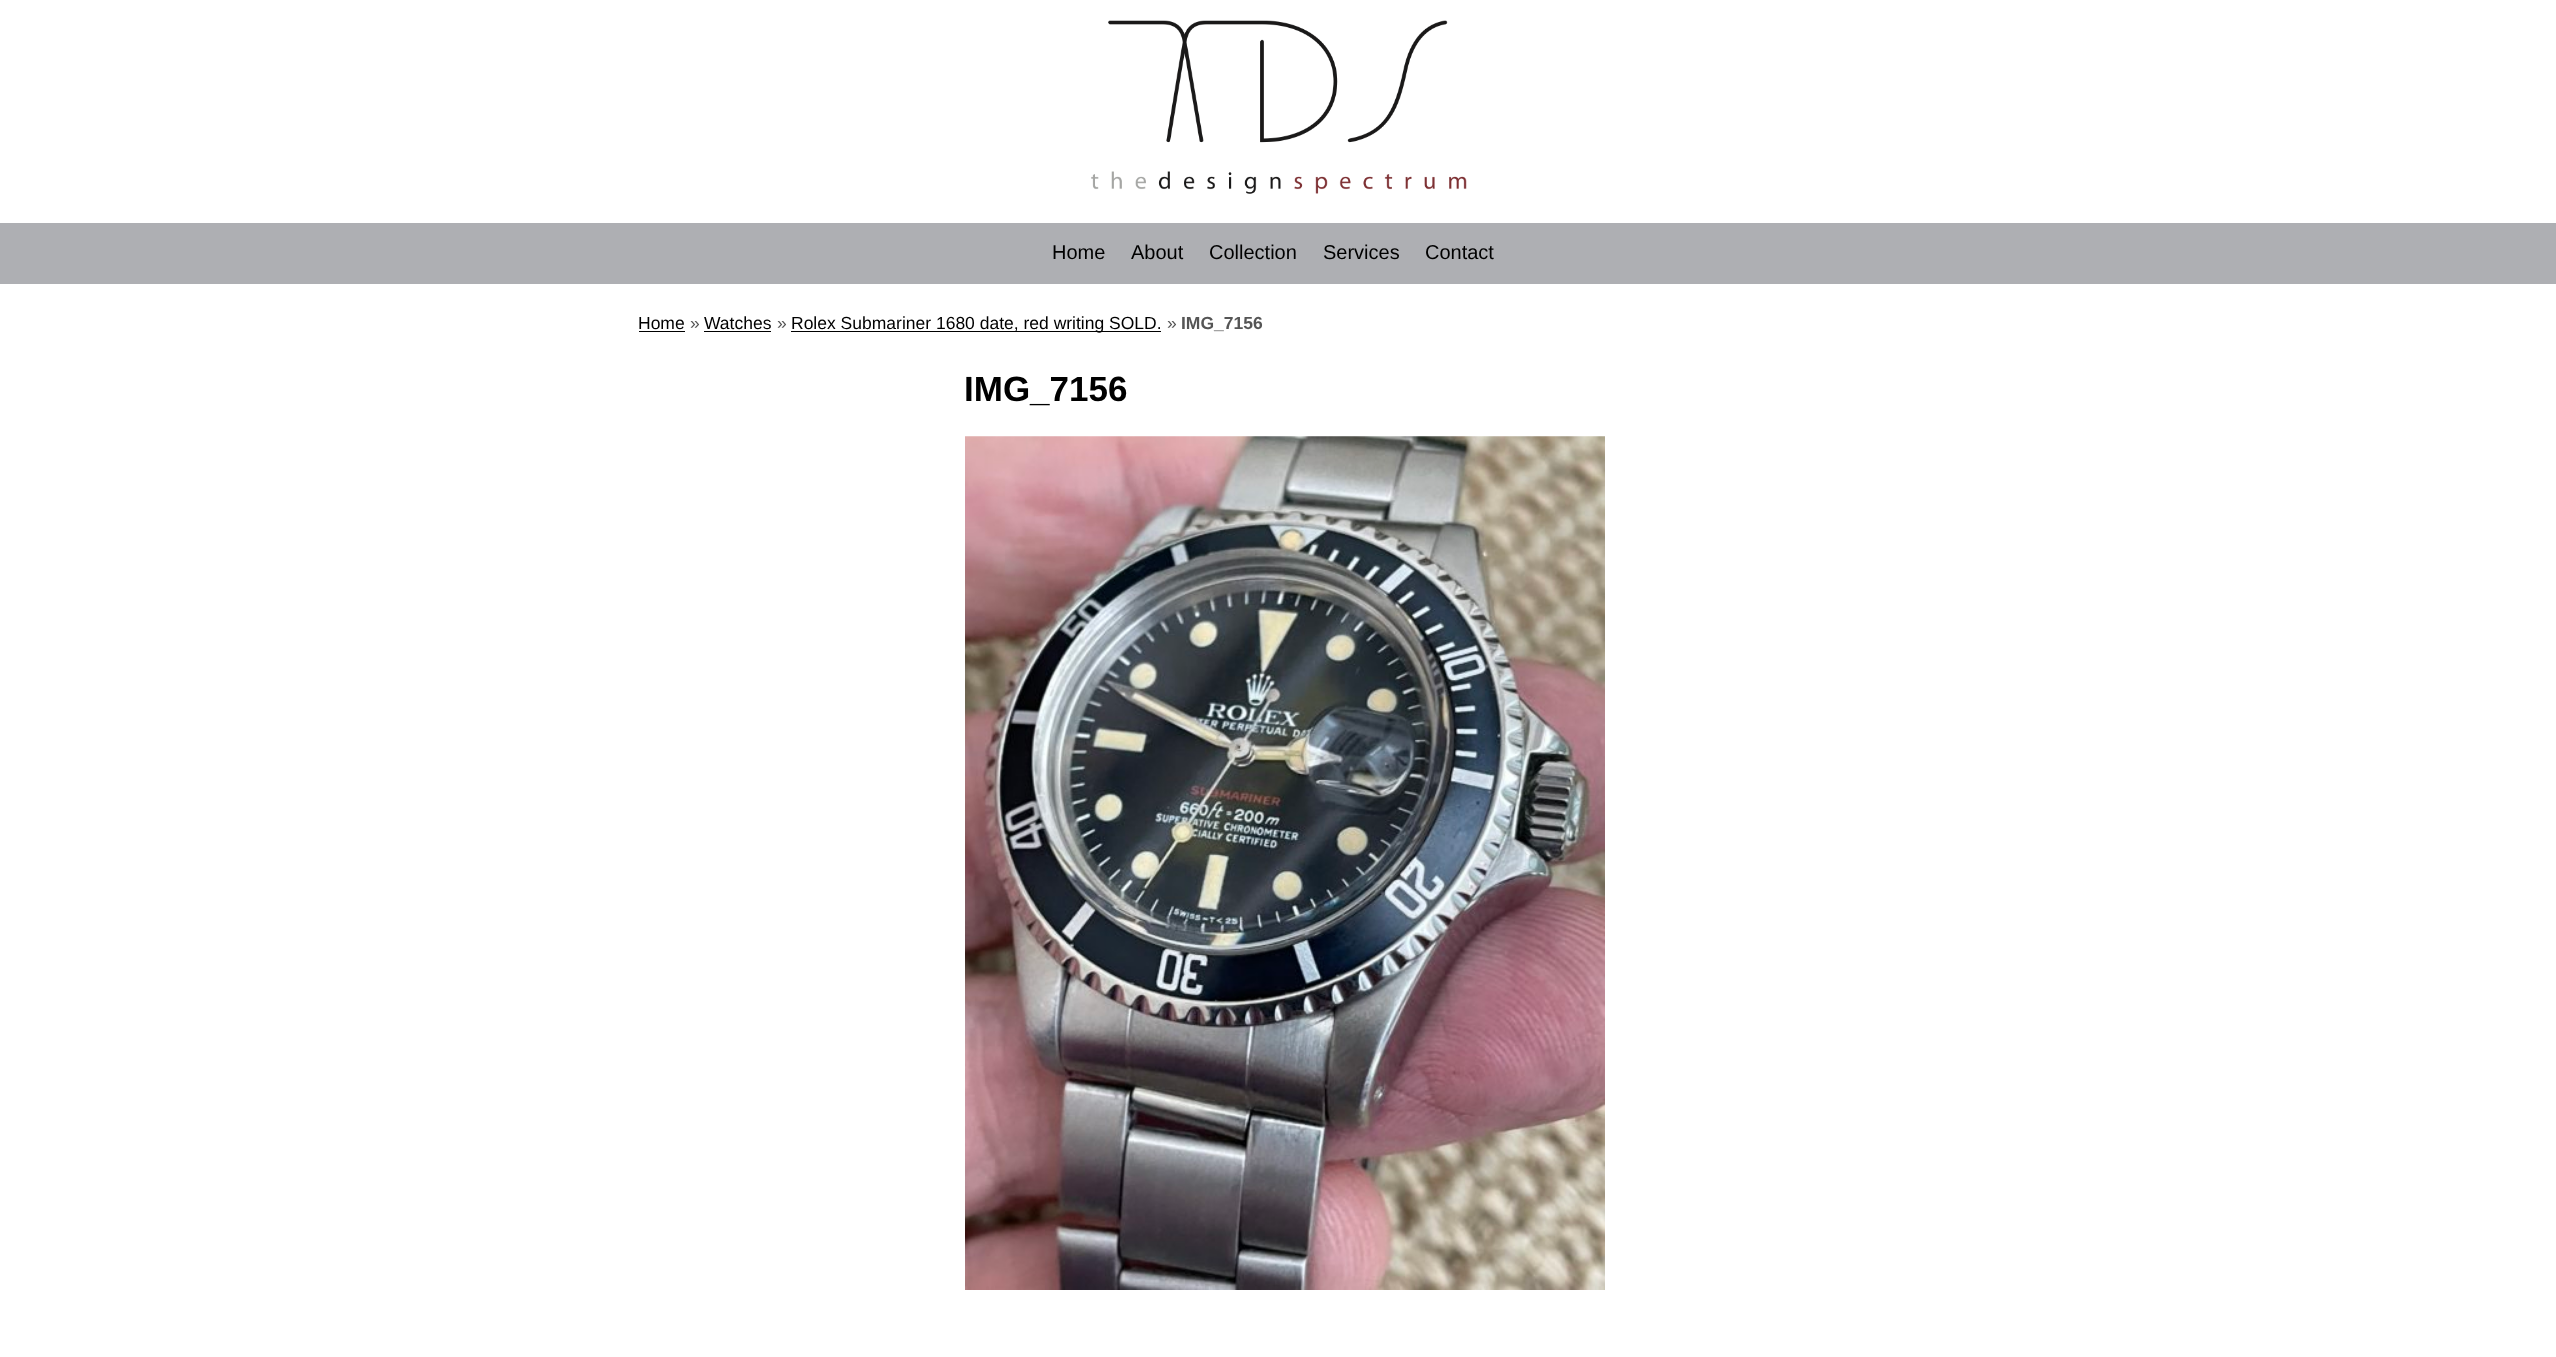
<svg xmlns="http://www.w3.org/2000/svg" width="2556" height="1357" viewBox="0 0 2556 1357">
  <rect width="100%" height="100%" fill="#ffffff"/>
  <image x="1091" y="20" width="376" height="174" href="img1.png"/>
  <rect x="0" y="223" width="2556" height="61" fill="#aeafb3"/>
  <text x="1052" y="259" font-family="Liberation Sans" font-size="20" fill="#000000">Home</text>
  <text x="1131" y="259" font-family="Liberation Sans" font-size="20" fill="#000000">About</text>
  <text x="1209" y="259" font-family="Liberation Sans" font-size="20" fill="#000000">Collection</text>
  <text x="1323" y="259" font-family="Liberation Sans" font-size="20" fill="#000000">Services</text>
  <text x="1425" y="259" font-family="Liberation Sans" font-size="20" fill="#000000">Contact</text>
  <text x="638" y="329" font-family="Liberation Sans" font-size="17.5" fill="#000000">Home</text>
  <rect x="639" y="331" width="46" height="1" fill="#000000"/>
  <text x="690" y="329" font-family="Liberation Sans" font-size="17.5" fill="#555555">»</text>
  <text x="704" y="329" font-family="Liberation Sans" font-size="17.5" fill="#000000">Watches</text>
  <rect x="704" y="331" width="67" height="1" fill="#000000"/>
  <text x="777" y="329" font-family="Liberation Sans" font-size="17.5" fill="#555555">»</text>
  <rect x="791" y="331" width="370" height="1" fill="#000000"/>
  <text x="791" y="329" font-family="Liberation Sans" font-size="17.5" fill="#000000">Rolex Submariner 1680 date, red writing SOLD.</text>
  <text x="1167" y="329" font-family="Liberation Sans" font-size="17.5" fill="#555555">»</text>
  <text x="1181" y="329" font-family="Liberation Sans" font-size="17.5" font-weight="bold" fill="#555555">IMG_7156</text>
  <text x="964" y="401" font-family="Liberation Sans" font-size="35" font-weight="bold" fill="#000000">IMG_7156</text>
  <image x="965" y="436" width="640" height="854" href="img2.png"/>
</svg>
